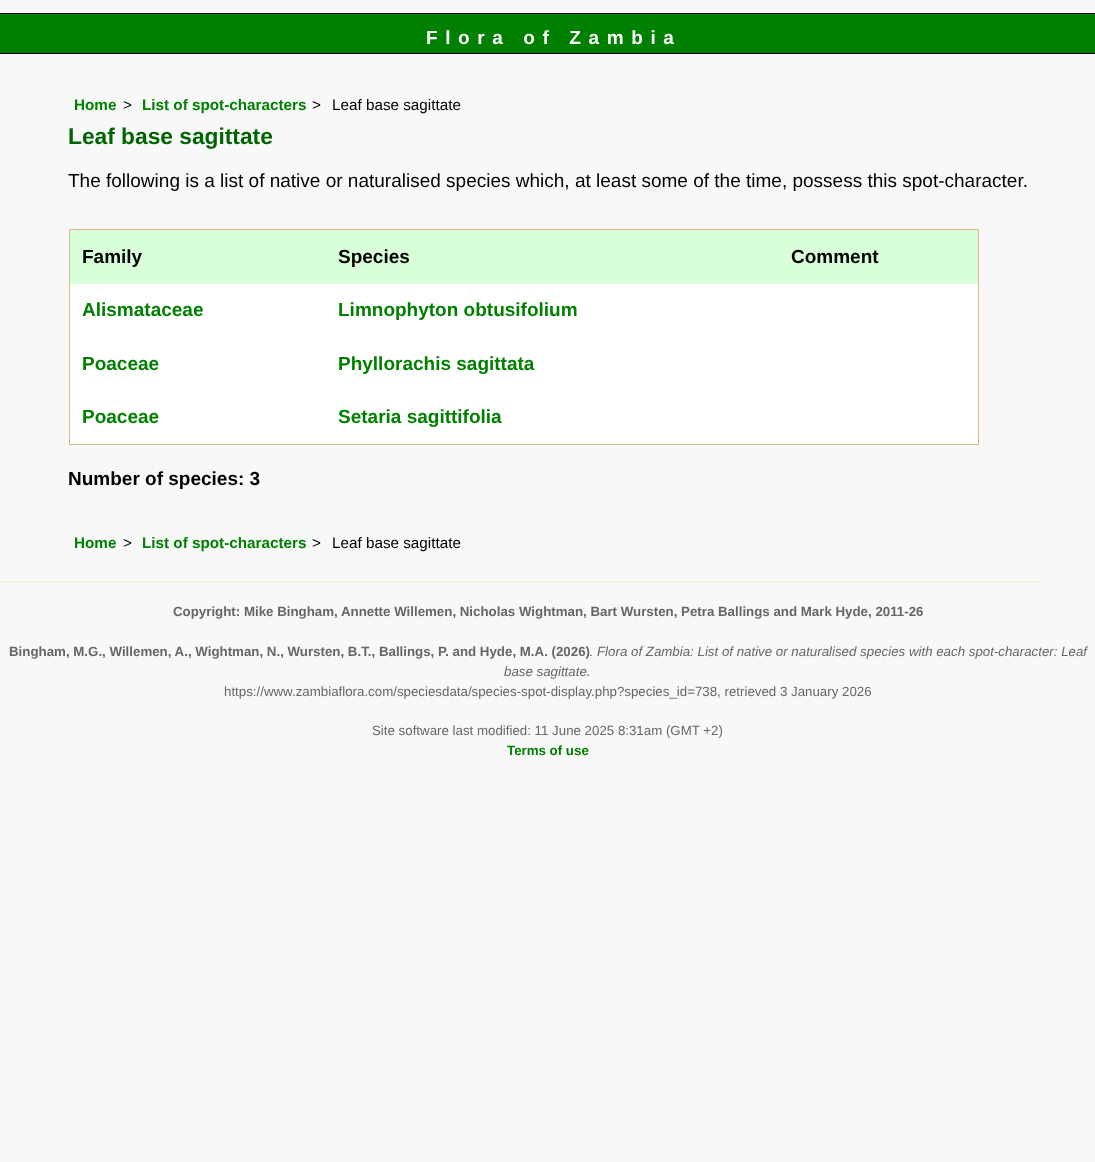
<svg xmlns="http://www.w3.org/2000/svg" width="1095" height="1162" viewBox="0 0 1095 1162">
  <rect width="100%" height="100%" fill="#f8f8f8"/>
  <rect x="0" y="14" width="1095" height="39" fill="#008000"/>
  <rect x="0" y="13" width="1095" height="1" fill="#000000"/>
  <rect x="0" y="53" width="1095" height="1" fill="#000000"/>
  <text x="426" y="44" font-family="Liberation Sans" font-size="19" font-weight="bold" letter-spacing="7.6" fill="#ffffff">Flora of Zambia</text>
  <text x="74" y="110" font-family="Liberation Sans" font-size="15.25" font-weight="bold" fill="#008000">Home</text>
  <text x="123" y="110" font-family="Liberation Sans" font-size="15.25" fill="#000000">&gt;</text>
  <text x="142" y="110" font-family="Liberation Sans" font-size="15.25" font-weight="bold" fill="#008000">List of spot-characters</text>
  <text x="312" y="110" font-family="Liberation Sans" font-size="15.25" fill="#000000">&gt;</text>
  <text x="332" y="110" font-family="Liberation Sans" font-size="15.25" fill="#000000">Leaf base sagittate</text>
  <text x="68" y="144" font-family="Liberation Sans" font-size="22.75" font-weight="bold" fill="#006400">Leaf base sagittate</text>
  <text x="68" y="187" font-family="Liberation Sans" font-size="19" fill="#000000">The following is a list of native or naturalised species which, at least some of the time, possess this spot-character.</text>
  <rect x="69" y="229" width="910" height="1" fill="#deb887"/>
  <rect x="978" y="229" width="1" height="216" fill="#deb887"/>
  <rect x="69" y="444" width="910" height="1" fill="#deb887"/>
  <rect x="69" y="229" width="1" height="216" fill="#deb887"/>
  <rect x="70" y="230" width="908" height="54" fill="#d8ffd8"/>
  <text x="82" y="263" font-family="Liberation Sans" font-size="19" font-weight="bold" fill="#000000">Family</text>
  <text x="338" y="263" font-family="Liberation Sans" font-size="19" font-weight="bold" fill="#000000">Species</text>
  <text x="791" y="263" font-family="Liberation Sans" font-size="19" font-weight="bold" fill="#000000">Comment</text>
  <rect x="70" y="284" width="908" height="160" fill="#ffffff"/>
  <text x="82" y="316" font-family="Liberation Sans" font-size="19" font-weight="bold" fill="#008000">Alismataceae</text>
  <text x="338" y="316" font-family="Liberation Sans" font-size="19" font-weight="bold" fill="#008000">Limnophyton obtusifolium</text>
  <text x="82" y="370" font-family="Liberation Sans" font-size="19" font-weight="bold" fill="#008000">Poaceae</text>
  <text x="338" y="370" font-family="Liberation Sans" font-size="19" font-weight="bold" fill="#008000">Phyllorachis sagittata</text>
  <text x="82" y="423" font-family="Liberation Sans" font-size="19" font-weight="bold" fill="#008000">Poaceae</text>
  <text x="338" y="423" font-family="Liberation Sans" font-size="19" font-weight="bold" fill="#008000">Setaria sagittifolia</text>
  <text x="68" y="485" font-family="Liberation Sans" font-size="19" font-weight="bold" fill="#000000">Number of species: 3</text>
  <text x="74" y="548" font-family="Liberation Sans" font-size="15.25" font-weight="bold" fill="#008000">Home</text>
  <text x="123" y="548" font-family="Liberation Sans" font-size="15.25" fill="#000000">&gt;</text>
  <text x="142" y="548" font-family="Liberation Sans" font-size="15.25" font-weight="bold" fill="#008000">List of spot-characters</text>
  <text x="312" y="548" font-family="Liberation Sans" font-size="15.25" fill="#000000">&gt;</text>
  <text x="332" y="548" font-family="Liberation Sans" font-size="15.25" fill="#000000">Leaf base sagittate</text>
  <rect x="0" y="581" width="1040" height="1" fill="#faedd4"/>
  <text x="173" y="616" font-family="Liberation Sans" font-size="13.3" font-weight="bold" fill="#666666">Copyright: Mike Bingham, Annette Willemen, Nicholas Wightman, Bart Wursten, Petra Ballings and Mark Hyde, 2011-26</text>
  <text x="9" y="656" font-family="Liberation Sans" font-size="13.3" font-weight="bold" fill="#666666">Bingham, M.G., Willemen, A., Wightman, N., Wursten, B.T., Ballings, P. and Hyde, M.A. (2026)</text>
  <text x="589" y="656" font-family="Liberation Sans" font-size="13.3" fill="#666666">.</text>
  <text x="597" y="656" font-family="Liberation Sans" font-size="13.3" font-style="italic" fill="#666666">Flora of Zambia: List of native or naturalised species with each spot-character: Leaf</text>
  <text x="504" y="676" font-family="Liberation Sans" font-size="13.3" font-style="italic" fill="#666666">base sagittate.</text>
  <text x="224" y="696" font-family="Liberation Sans" font-size="13.3" fill="#666666">https://www.zambiaflora.com/speciesdata/species-spot-display.php?species_id=738, retrieved 3 January 2026</text>
  <text x="372" y="735" font-family="Liberation Sans" font-size="13.3" fill="#666666">Site software last modified: 11 June 2025 8:31am (GMT +2)</text>
  <text x="507" y="755" font-family="Liberation Sans" font-size="13.3" font-weight="bold" fill="#008000">Terms of use</text>
</svg>
